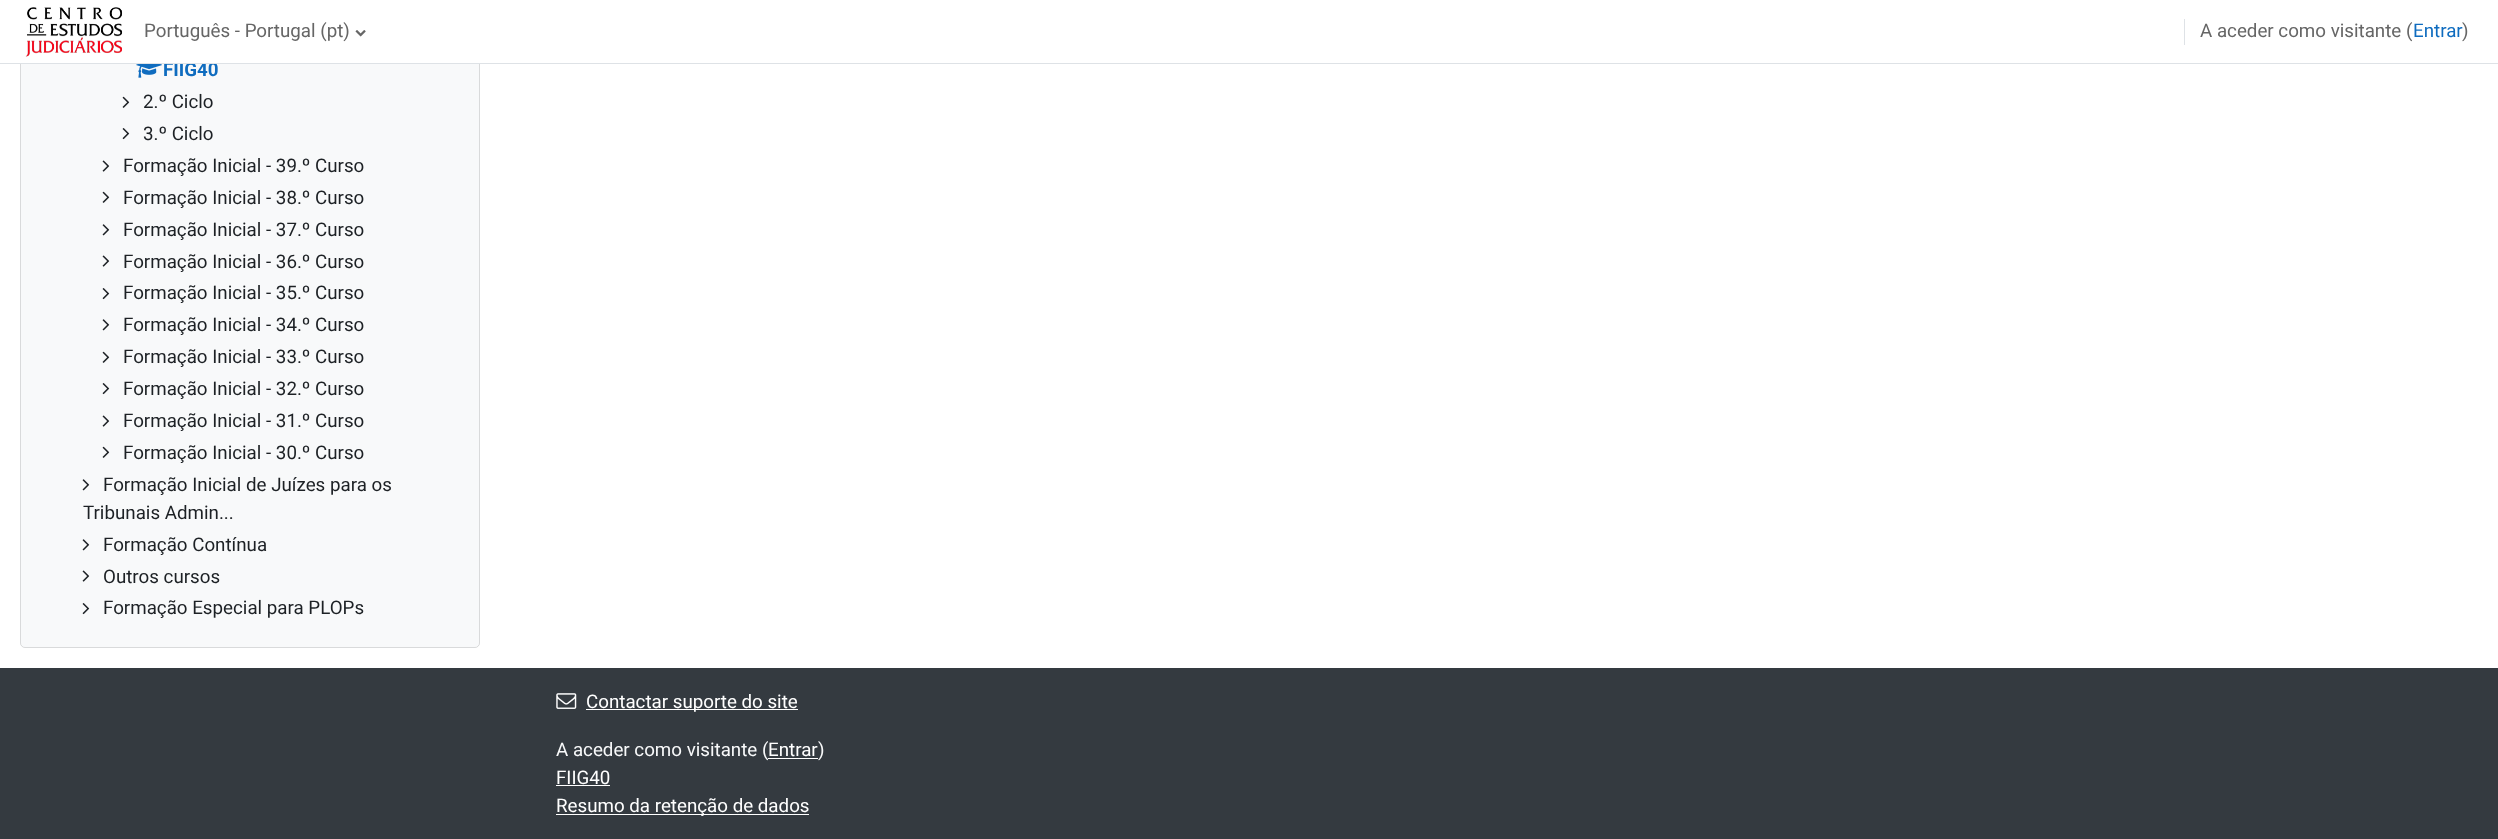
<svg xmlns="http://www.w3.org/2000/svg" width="2498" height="839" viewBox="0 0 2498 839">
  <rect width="100%" height="100%" fill="#ffffff"/>
  <rect x="20" y="-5" width="460" height="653" rx="5" fill="#f8f9fa"/>
  <rect x="20.5" y="-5.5" width="459" height="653" rx="4.5" fill="none" stroke="#000000" stroke-opacity="0.12"/>
  <text x="163" y="76" font-family="Roboto" font-size="18.75" font-weight="bold" fill="#0f6cbf">FIIG40</text>
  <rect x="20" y="0" width="460" height="63" fill="#ffffff"/>
  <rect x="0" y="63" width="2498" height="1" fill="#dee2e6"/>
  <image x="25" y="7" width="98" height="50" href="img1.png"/>
  <text x="144" y="37" font-family="Roboto" font-size="18.75" fill="#666666">Português - Portugal (pt)</text>
  <image x="355" y="30" width="11" height="7" href="img2.png"/>
  <rect x="2184" y="19" width="1" height="26" fill="#dee2e6"/>
  <text x="2200" y="37" font-family="Roboto" font-size="18.75" fill="#666666">A aceder como visitante (</text>
  <text x="2413" y="37" font-family="Roboto" font-size="18.75" fill="#0f6cbf">Entrar</text>
  <text x="2462" y="37" font-family="Roboto" font-size="18.75" fill="#666666">)</text>
  <image x="136" y="64" width="26" height="14" href="img3.png"/>
  <image x="122" y="96" width="8" height="12" href="img4.png"/>
  <text x="143" y="108" font-family="Roboto" font-size="18.75" fill="#1d2125">2.º Ciclo</text>
  <image x="122" y="128" width="8" height="12" href="img5.png"/>
  <text x="143" y="140" font-family="Roboto" font-size="18.75" fill="#1d2125">3.º Ciclo</text>
  <image x="102" y="160" width="8" height="12" href="img6.png"/>
  <text x="123" y="172" font-family="Roboto" font-size="18.75" fill="#1d2125">Formação Inicial - 39.º Curso</text>
  <image x="102" y="191" width="8" height="12" href="img4.png"/>
  <text x="123" y="204" font-family="Roboto" font-size="18.75" fill="#1d2125">Formação Inicial - 38.º Curso</text>
  <image x="102" y="224" width="8" height="12" href="img7.png"/>
  <text x="123" y="236" font-family="Roboto" font-size="18.75" fill="#1d2125">Formação Inicial - 37.º Curso</text>
  <image x="102" y="255" width="8" height="12" href="img6.png"/>
  <text x="123" y="268" font-family="Roboto" font-size="18.75" fill="#1d2125">Formação Inicial - 36.º Curso</text>
  <image x="102" y="288" width="8" height="12" href="img5.png"/>
  <text x="123" y="299" font-family="Roboto" font-size="18.75" fill="#1d2125">Formação Inicial - 35.º Curso</text>
  <image x="102" y="319" width="8" height="12" href="img7.png"/>
  <text x="123" y="331" font-family="Roboto" font-size="18.75" fill="#1d2125">Formação Inicial - 34.º Curso</text>
  <image x="102" y="351" width="8" height="12" href="img4.png"/>
  <text x="123" y="363" font-family="Roboto" font-size="18.75" fill="#1d2125">Formação Inicial - 33.º Curso</text>
  <image x="102" y="383" width="8" height="12" href="img5.png"/>
  <text x="123" y="395" font-family="Roboto" font-size="18.75" fill="#1d2125">Formação Inicial - 32.º Curso</text>
  <image x="102" y="415" width="8" height="12" href="img6.png"/>
  <text x="123" y="427" font-family="Roboto" font-size="18.75" fill="#1d2125">Formação Inicial - 31.º Curso</text>
  <image x="102" y="446" width="8" height="12" href="img4.png"/>
  <text x="123" y="459" font-family="Roboto" font-size="18.75" fill="#1d2125">Formação Inicial - 30.º Curso</text>
  <image x="82" y="479" width="8" height="12" href="img7.png"/>
  <text x="103" y="491" font-family="Roboto" font-size="18.75" fill="#1d2125">Formação Inicial de Juízes para os</text>
  <text x="83" y="519" font-family="Roboto" font-size="18.75" fill="#1d2125">Tribunais Admin...</text>
  <image x="82" y="539" width="8" height="12" href="img7.png"/>
  <text x="103" y="551" font-family="Roboto" font-size="18.75" fill="#1d2125">Formação Contínua</text>
  <image x="82" y="570" width="8" height="12" href="img6.png"/>
  <text x="103" y="583" font-family="Roboto" font-size="18.75" fill="#1d2125">Outros cursos</text>
  <image x="82" y="603" width="8" height="12" href="img5.png"/>
  <text x="103" y="614" font-family="Roboto" font-size="18.75" fill="#1d2125">Formação Especial para PLOPs</text>
  <rect x="0" y="668" width="2498" height="171" fill="#343a40"/>
  <image x="556" y="693" width="21" height="16" href="img8.png"/>
  <rect x="586" y="709" width="212" height="1" fill="#ffffff"/>
  <text x="586" y="708" font-family="Roboto" font-size="18.75" fill="#ffffff">Contactar suporte do site</text>
  <text x="556" y="756" font-family="Roboto" font-size="18.75" fill="#f8f9fa">A aceder como visitante (</text>
  <text x="768" y="756" font-family="Roboto" font-size="18.75" fill="#ffffff">Entrar</text>
  <rect x="768" y="758" width="50" height="1" fill="#ffffff"/>
  <text x="818" y="756" font-family="Roboto" font-size="18.75" fill="#f8f9fa">)</text>
  <text x="556" y="784" font-family="Roboto" font-size="18.75" fill="#ffffff">FIIG40</text>
  <rect x="556" y="785" width="54" height="1" fill="#ffffff"/>
  <rect x="556" y="814" width="253" height="1" fill="#ffffff"/>
  <text x="556" y="812" font-family="Roboto" font-size="18.75" fill="#ffffff">Resumo da retenção de dados</text>
</svg>
